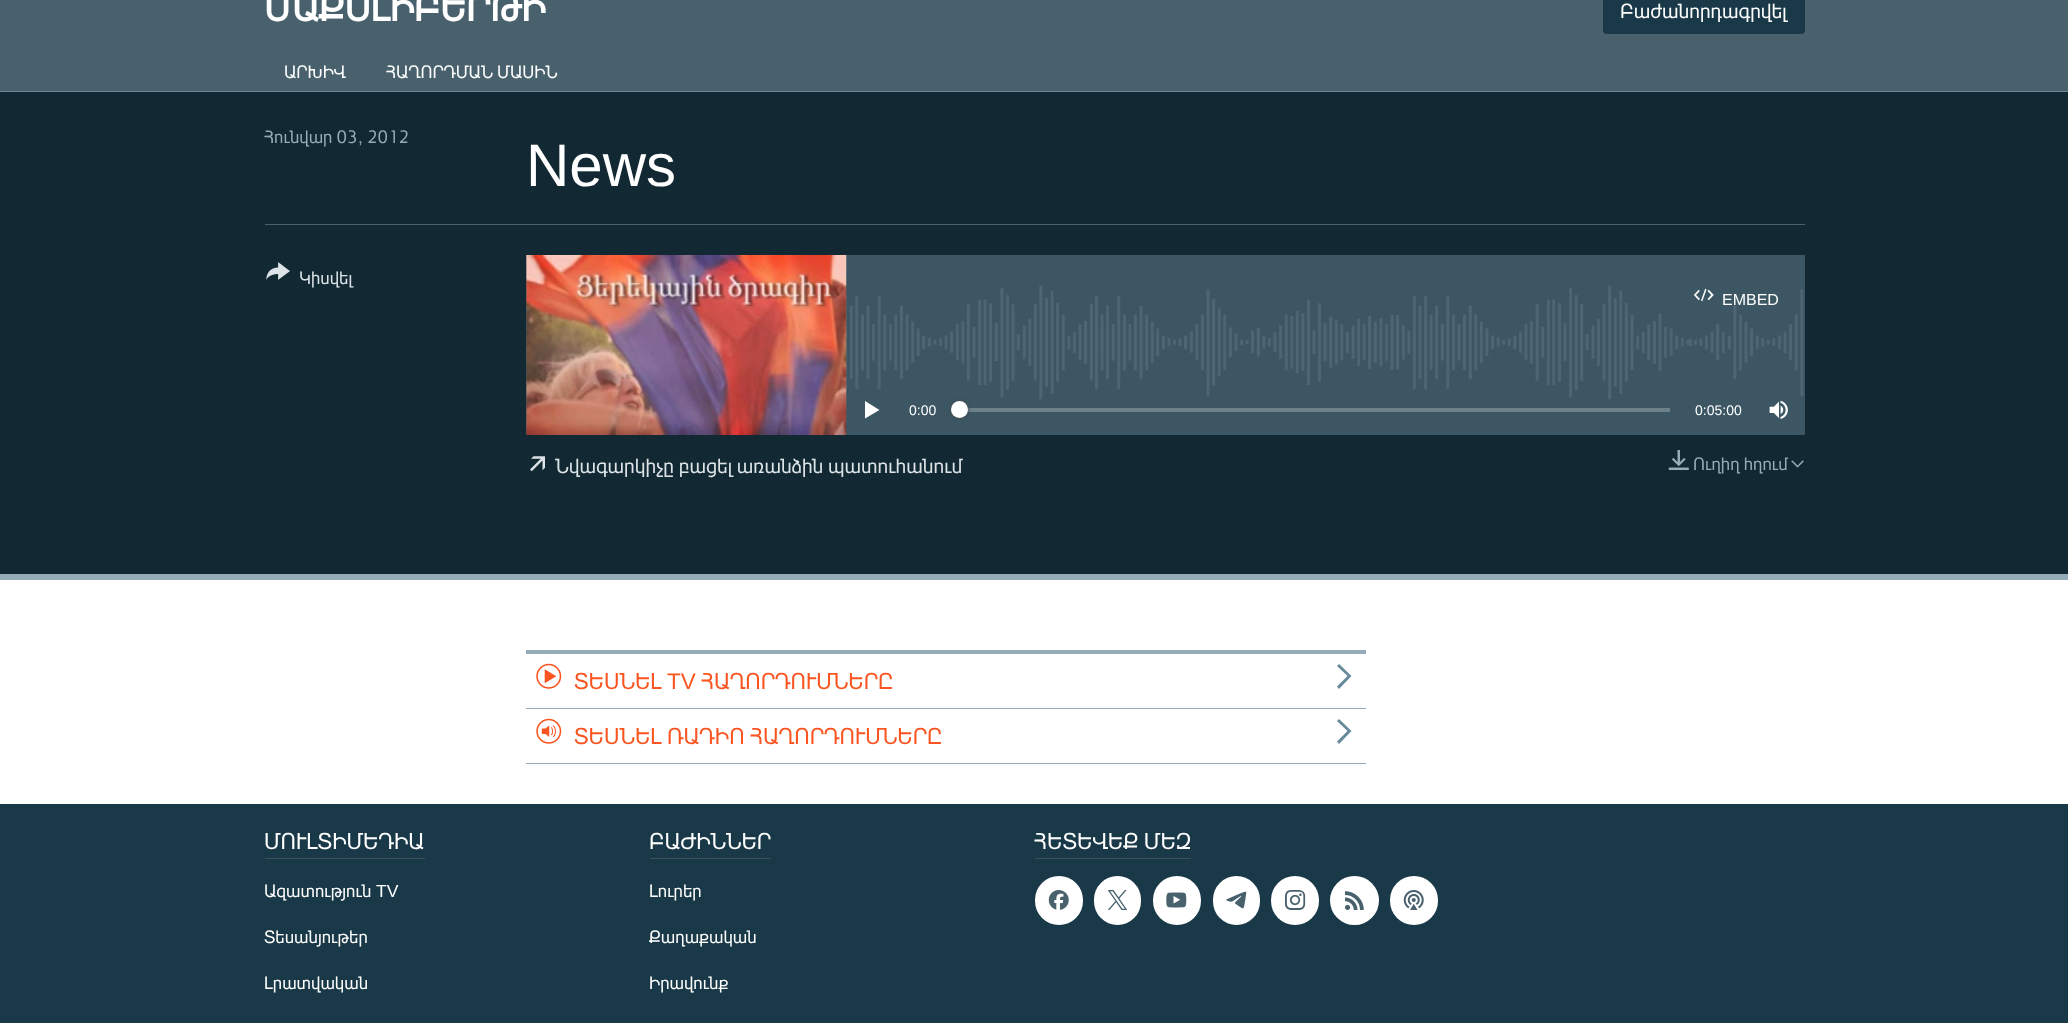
<svg xmlns="http://www.w3.org/2000/svg" width="2068" height="1023" viewBox="0 0 2068 1023">
  <defs>
    <filter id="blur1" x="-50%" y="-200%" width="200%" height="500%"><feGaussianBlur stdDeviation="2"/></filter>
  </defs>
  <rect width="100%" height="100%" fill="#ffffff"/>
  <rect x="0" y="0" width="2068" height="91" fill="#48616d"/>
  <text x="264" y="21" font-family="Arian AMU" font-size="38" font-weight="bold" fill="#ffffff">ՄԱՔՍԼԻԲԵՐԹԻ</text>
  <rect x="1603" y="-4" width="202" height="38" rx="4" fill="#1a3948"/>
  <text x="1620" y="18" font-family="Arian AMU" font-size="20" fill="#ffffff">Բաժանորդագրվել</text>
  <text x="284" y="78" font-family="Arian AMU" font-size="17.5" fill="#ffffff">ԱՐԽԻՎ</text>
  <text x="386" y="78" font-family="Arian AMU" font-size="17.5" fill="#ffffff">ՀԱՂՈՐԴՄԱՆ ՄԱՍԻՆ</text>
  <rect x="0" y="92" width="2068" height="482" fill="#122832"/>
  <rect x="0" y="91" width="2068" height="1" fill="#678a9b"/>
  <rect x="0" y="574" width="2068" height="6" fill="#95adb9"/>
  <text x="264" y="143" font-family="Arian AMU" font-size="17.5" fill="#95adb9">Հունվար 03</text>
  <text x="358" y="143" font-family="Liberation Sans" font-size="17.5" fill="#95adb9">,</text>
  <text x="367" y="143" font-family="Arian AMU" font-size="17.5" fill="#95adb9">2012</text>
  <text x="526" y="186" font-family="Liberation Sans" font-size="60" fill="#ffffff">News</text>
  <rect x="265" y="224" width="1540" height="1" fill="#48616d"/>
  <image x="266" y="262" width="24" height="18" href="img1.png"/>
  <text x="299" y="284" font-family="Arian AMU" font-size="17.5" fill="#dce4e8">Կիսվել</text>
  <rect x="526" y="255" width="1279" height="180" fill="#3c5763"/>
  <image x="526" y="285" width="1278" height="115" href="img2.png"/>
  <image x="526" y="255" width="321" height="180" href="img3.png"/>
  <image x="1693" y="288" width="21" height="14" href="img4.png"/>
  <text x="1722" y="305" font-family="Liberation Sans" font-size="16" fill="#ffffff">EMBED</text>
  <path d="M865 418.5L879.5 410L865 401Z" fill="#ffffff"/>
  <text x="909" y="415" font-family="Liberation Sans" font-size="14" fill="#ffffff">0:00</text>
  <rect x="960" y="408" width="710" height="4" fill="#6d818a"/>
  <rect x="951" y="401" width="17" height="17" rx="8.5" fill="#414144" filter="url(#blur1)"/>
  <circle cx="959.5" cy="409.5" r="8.5" fill="#ffffff"/>
  <text x="1695" y="415" font-family="Liberation Sans" font-size="14" fill="#ffffff">0:05:00</text>
  <image x="1769" y="400" width="19" height="19" href="img5.png"/>
  <image x="530" y="456" width="15" height="16" href="img6.png"/>
  <text x="555" y="473" font-family="Arian AMU" font-size="20" fill="#dce4e8">Նվագարկիչը բացել առանձին պատուհանում</text>
  <image x="1668" y="450" width="21" height="20" href="img7.png"/>
  <text x="1693" y="470" font-family="Arian AMU" font-size="17.5" fill="#95adb9">Ուղիղ հղում</text>
  <image x="1791" y="460" width="13" height="8" href="img8.png"/>
  <rect x="526" y="650" width="840" height="4" fill="#95adb9"/>
  <rect x="526" y="708" width="840" height="1" fill="#95adb9"/>
  <image x="536" y="663" width="26" height="26" href="img9.png"/>
  <text x="574" y="689" font-family="Arian AMU" font-size="22.5" fill="#fa5420">ՏԵՍՆԵԼ</text>
  <text x="667" y="689" font-family="Liberation Sans" font-size="22.5" fill="#fa5420">TV</text>
  <text x="701" y="689" font-family="Arian AMU" font-size="22.5" fill="#fa5420">ՀԱՂՈՐԴՈՒՄՆԵՐԸ</text>
  <path d="M1339 689L1351.5 676L1339 664L1337 666L1347.5 676L1337 686.5Z" fill="#678a9b"/>
  <rect x="526" y="763" width="840" height="1" fill="#95adb9"/>
  <image x="536" y="718" width="26" height="26" href="img10.png"/>
  <text x="574" y="744" font-family="Arian AMU" font-size="22.5" fill="#fa5420">ՏԵՍՆԵԼ ՌԱԴԻՈ ՀԱՂՈՐԴՈՒՄՆԵՐԸ</text>
  <path d="M1339 744L1351.5 731L1339 719L1337 721L1347.5 731L1337 741.5Z" fill="#678a9b"/>
  <rect x="0" y="804" width="2068" height="219" fill="#1a3948"/>
  <rect x="265" y="858" width="160" height="1" fill="#3e4f57"/>
  <text x="264" y="849" font-family="Arian AMU" font-size="22.5" fill="#ffffff">ՄՈՒԼՏԻՄԵԴԻԱ</text>
  <text x="264" y="897" font-family="Arian AMU" font-size="17.5" fill="#ffffff">Ազատություն</text>
  <text x="376" y="897" font-family="Liberation Sans" font-size="17.5" fill="#ffffff">TV</text>
  <text x="264" y="943" font-family="Arian AMU" font-size="17.5" fill="#ffffff">Տեսանյութեր</text>
  <text x="264" y="989" font-family="Arian AMU" font-size="17.5" fill="#ffffff">Լրատվական</text>
  <rect x="650" y="858" width="121" height="1" fill="#3e4f57"/>
  <text x="649" y="849" font-family="Arian AMU" font-size="22.5" fill="#ffffff">ԲԱԺԻՆՆԵՐ</text>
  <text x="649" y="897" font-family="Arian AMU" font-size="17.5" fill="#ffffff">Լուրեր</text>
  <text x="649" y="943" font-family="Arian AMU" font-size="17.5" fill="#ffffff">Քաղաքական</text>
  <text x="649" y="989" font-family="Arian AMU" font-size="17.5" fill="#ffffff">Իրավունք</text>
  <rect x="1035" y="858" width="156" height="1" fill="#3e4f57"/>
  <text x="1034" y="849" font-family="Arian AMU" font-size="22.5" fill="#ffffff">ՀԵՏԵՎԵՔ ՄԵԶ</text>
  <rect x="1035" y="876" width="48" height="49" rx="24" fill="#ffffff"/>
  <image x="1048" y="890" width="21" height="20" href="img11.png"/>
  <rect x="1094" y="876" width="47" height="49" rx="23.5" fill="#ffffff"/>
  <image x="1107" y="890" width="21" height="20" href="img12.png"/>
  <rect x="1153" y="876" width="48" height="49" rx="24" fill="#ffffff"/>
  <image x="1166" y="892" width="21" height="16" href="img13.png"/>
  <rect x="1213" y="876" width="47" height="49" rx="23.5" fill="#ffffff"/>
  <image x="1226" y="891" width="21" height="18" href="img14.png"/>
  <rect x="1271" y="876" width="48" height="49" rx="24" fill="#ffffff"/>
  <image x="1285" y="890" width="21" height="20" href="img15.png"/>
  <circle cx="1354.5" cy="900.5" r="24.5" fill="#ffffff"/>
  <image x="1345" y="891" width="19" height="19" href="img16.png"/>
  <rect x="1390" y="876" width="48" height="49" rx="24" fill="#ffffff"/>
  <image x="1403" y="890" width="21" height="20" href="img17.png"/>
</svg>
